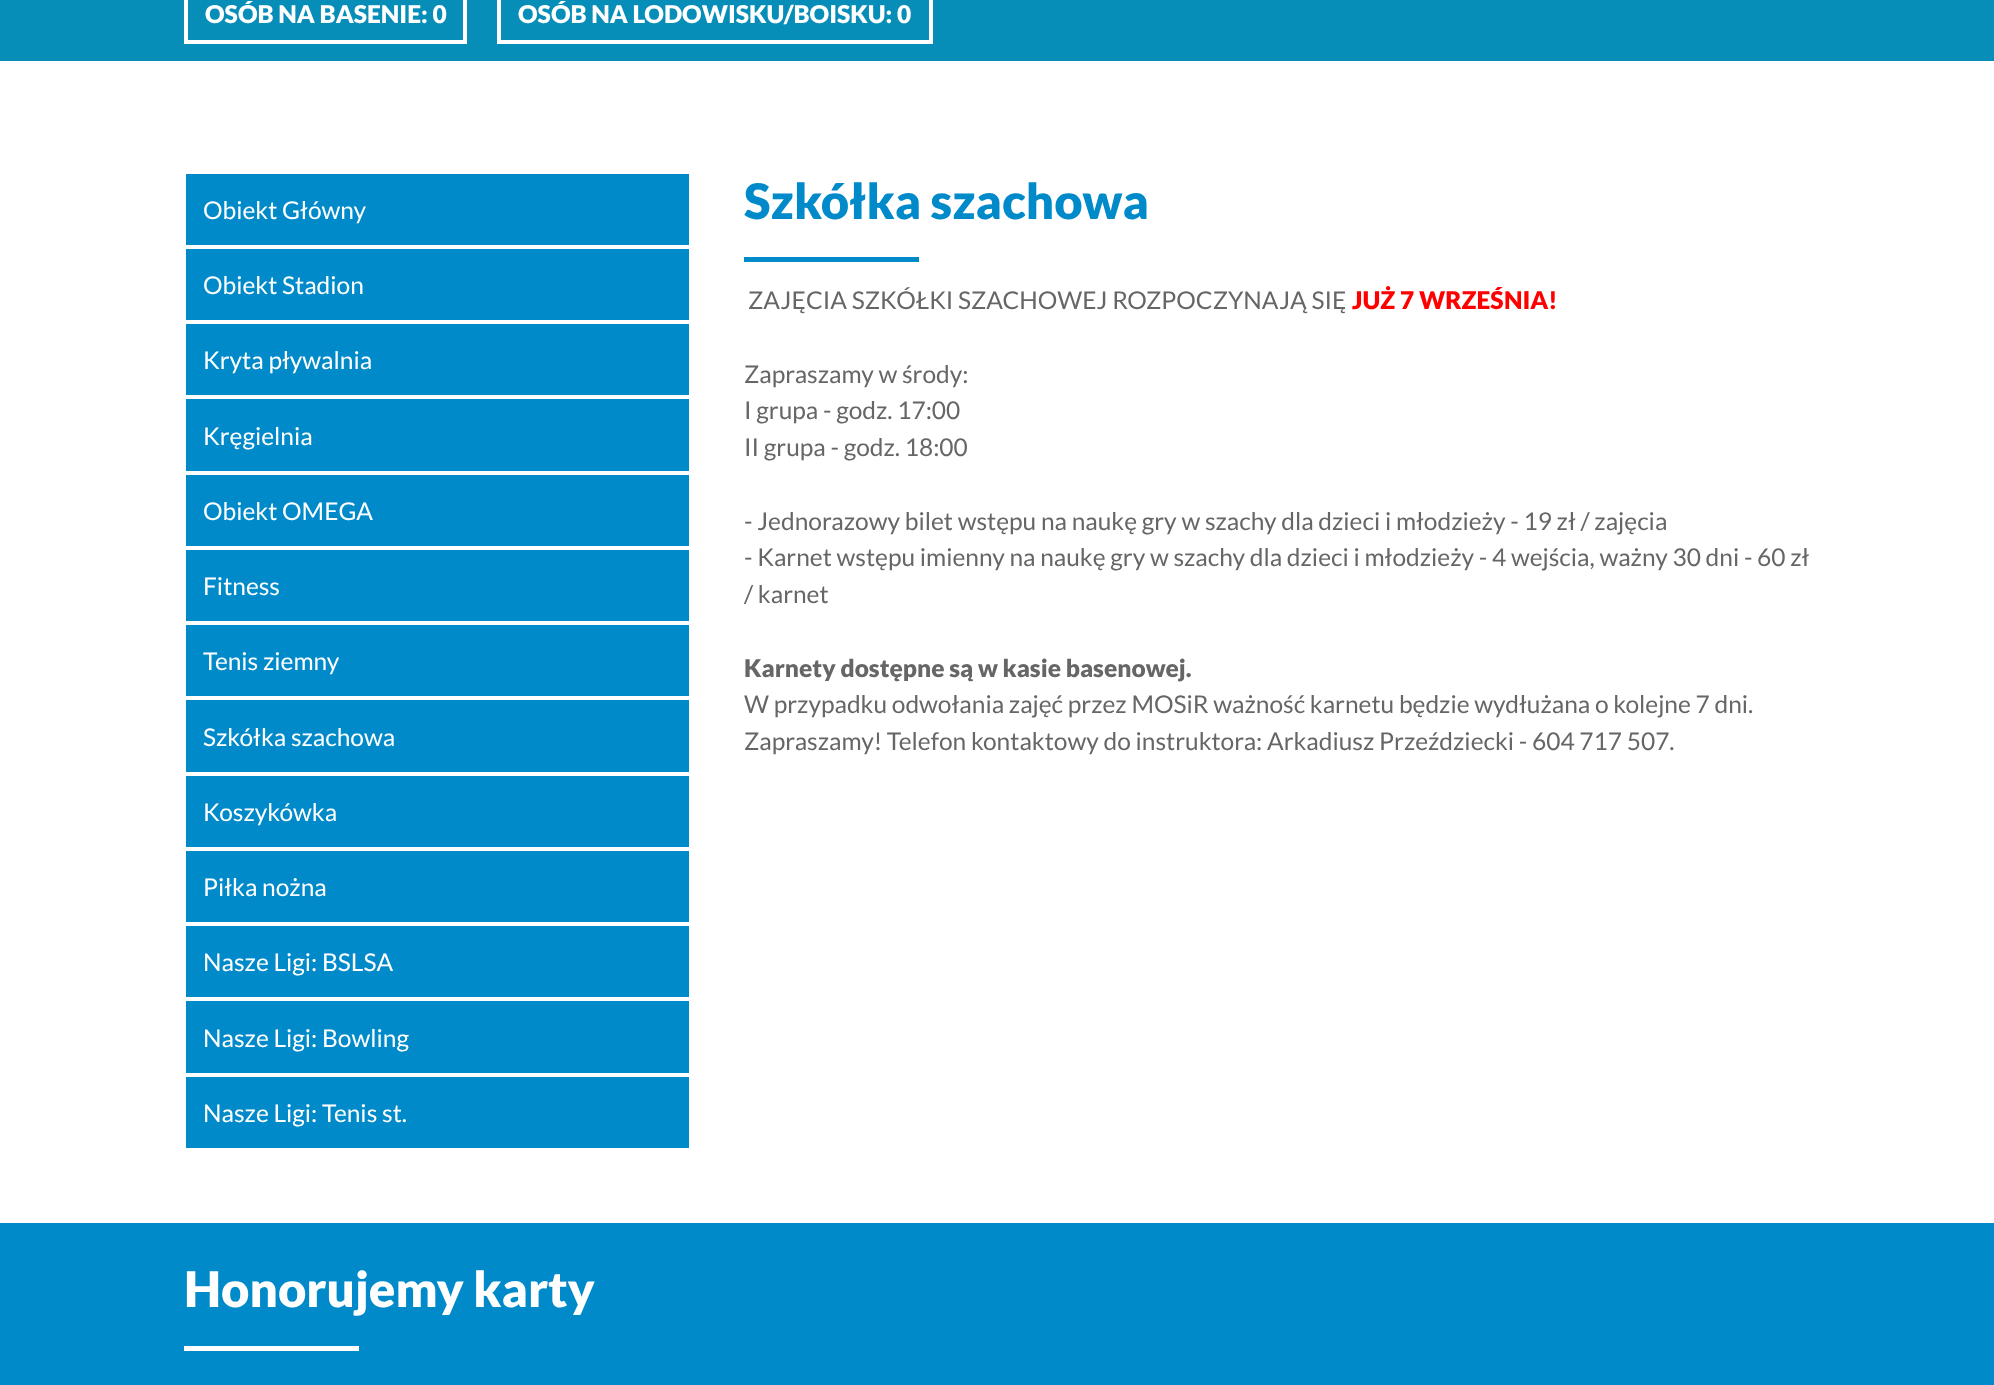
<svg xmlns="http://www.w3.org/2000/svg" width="1994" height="1385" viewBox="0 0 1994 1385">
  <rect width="100%" height="100%" fill="#ffffff"/>
  <rect x="0" y="0" width="1994" height="61" fill="#078eb8"/>
  <rect x="186" y="-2" width="279" height="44" fill="none" stroke="#ffffff" stroke-width="4"/>
  <text x="205" y="23" font-family="Lato" font-size="24.5" font-weight="900" fill="#ffffff">OSÓB NA BASENIE: 0</text>
  <rect x="499" y="-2" width="432" height="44" fill="none" stroke="#ffffff" stroke-width="4"/>
  <text x="518" y="23" font-family="Lato" font-size="24.5" font-weight="900" fill="#ffffff">OSÓB NA LODOWISKU/BOISKU: 0</text>
  <rect x="186" y="174" width="503" height="71" fill="#008ac9"/>
  <text x="203" y="219" font-family="Lato" font-size="24.5" fill="#ffffff">Obiekt Główny</text>
  <rect x="186" y="249" width="503" height="71" fill="#008ac9"/>
  <text x="203" y="294" font-family="Lato" font-size="24.5" fill="#ffffff">Obiekt Stadion</text>
  <rect x="186" y="324" width="503" height="71" fill="#008ac9"/>
  <text x="203" y="369" font-family="Lato" font-size="24.5" fill="#ffffff">Kryta pływalnia</text>
  <rect x="186" y="399" width="503" height="72" fill="#008ac9"/>
  <text x="203" y="445" font-family="Lato" font-size="24.5" fill="#ffffff">Kręgielnia</text>
  <rect x="186" y="475" width="503" height="71" fill="#008ac9"/>
  <text x="203" y="520" font-family="Lato" font-size="24.5" fill="#ffffff">Obiekt OMEGA</text>
  <rect x="186" y="550" width="503" height="71" fill="#008ac9"/>
  <text x="203" y="595" font-family="Lato" font-size="24.5" fill="#ffffff">Fitness</text>
  <rect x="186" y="625" width="503" height="71" fill="#008ac9"/>
  <text x="203" y="670" font-family="Lato" font-size="24.5" fill="#ffffff">Tenis ziemny</text>
  <rect x="186" y="700" width="503" height="72" fill="#008ac9"/>
  <text x="203" y="746" font-family="Lato" font-size="24.5" fill="#ffffff">Szkółka szachowa</text>
  <rect x="186" y="776" width="503" height="71" fill="#008ac9"/>
  <text x="203" y="821" font-family="Lato" font-size="24.5" fill="#ffffff">Koszykówka</text>
  <rect x="186" y="851" width="503" height="71" fill="#008ac9"/>
  <text x="203" y="896" font-family="Lato" font-size="24.5" fill="#ffffff">Piłka nożna</text>
  <rect x="186" y="926" width="503" height="71" fill="#008ac9"/>
  <text x="203" y="971" font-family="Lato" font-size="24.5" fill="#ffffff">Nasze Ligi: BSLSA</text>
  <rect x="186" y="1001" width="503" height="72" fill="#008ac9"/>
  <text x="203" y="1047" font-family="Lato" font-size="24.5" fill="#ffffff">Nasze Ligi: Bowling</text>
  <rect x="186" y="1077" width="503" height="71" fill="#008ac9"/>
  <text x="203" y="1122" font-family="Lato" font-size="24.5" fill="#ffffff">Nasze Ligi: Tenis st.</text>
  <text x="744" y="219" font-family="Lato" font-size="49" font-weight="900" fill="#008ac9">Szkółka szachowa</text>
  <rect x="744" y="257" width="175" height="5" fill="#008ac9"/>
  <text x="748" y="309" font-family="Lato" font-size="24.5" fill="#666666">ZAJĘCIA SZKÓŁKI SZACHOWEJ ROZPOCZYNAJĄ SIĘ</text>
  <text x="1352" y="309" font-family="Lato" font-size="24.5" font-weight="900" fill="#ff0000">JUŻ 7 WRZEŚNIA!</text>
  <text x="744" y="383" font-family="Lato" font-size="24.5" fill="#666666">Zapraszamy w środy:</text>
  <text x="744" y="419" font-family="Lato" font-size="24.5" fill="#666666">I grupa - godz. 17:00</text>
  <text x="744" y="456" font-family="Lato" font-size="24.5" fill="#666666">II grupa - godz. 18:00</text>
  <text x="744" y="530" font-family="Lato" font-size="24.5" fill="#666666">- Jednorazowy bilet wstępu na naukę gry w szachy dla dzieci i młodzieży - 19 zł / zajęcia</text>
  <text x="744" y="566" font-family="Lato" font-size="24.5" fill="#666666">- Karnet wstępu imienny na naukę gry w szachy dla dzieci i młodzieży - 4 wejścia, ważny 30 dni - 60 zł</text>
  <text x="744" y="603" font-family="Lato" font-size="24.5" fill="#666666">/ karnet</text>
  <text x="744" y="677" font-family="Lato" font-size="24.5" font-weight="900" fill="#666666">Karnety dostępne są w kasie basenowej.</text>
  <text x="744" y="713" font-family="Lato" font-size="24.5" fill="#666666">W przypadku odwołania zajęć przez MOSiR ważność karnetu będzie wydłużana o kolejne 7 dni.</text>
  <text x="744" y="750" font-family="Lato" font-size="24.5" fill="#666666">Zapraszamy! Telefon kontaktowy do instruktora: Arkadiusz Przeździecki - 604 717 507.</text>
  <rect x="0" y="1223" width="1994" height="162" fill="#008ac9"/>
  <text x="184" y="1307" font-family="Lato" font-size="49" font-weight="900" fill="#ffffff">Honorujemy karty</text>
  <rect x="184" y="1346" width="175" height="5" fill="#ffffff"/>
</svg>
